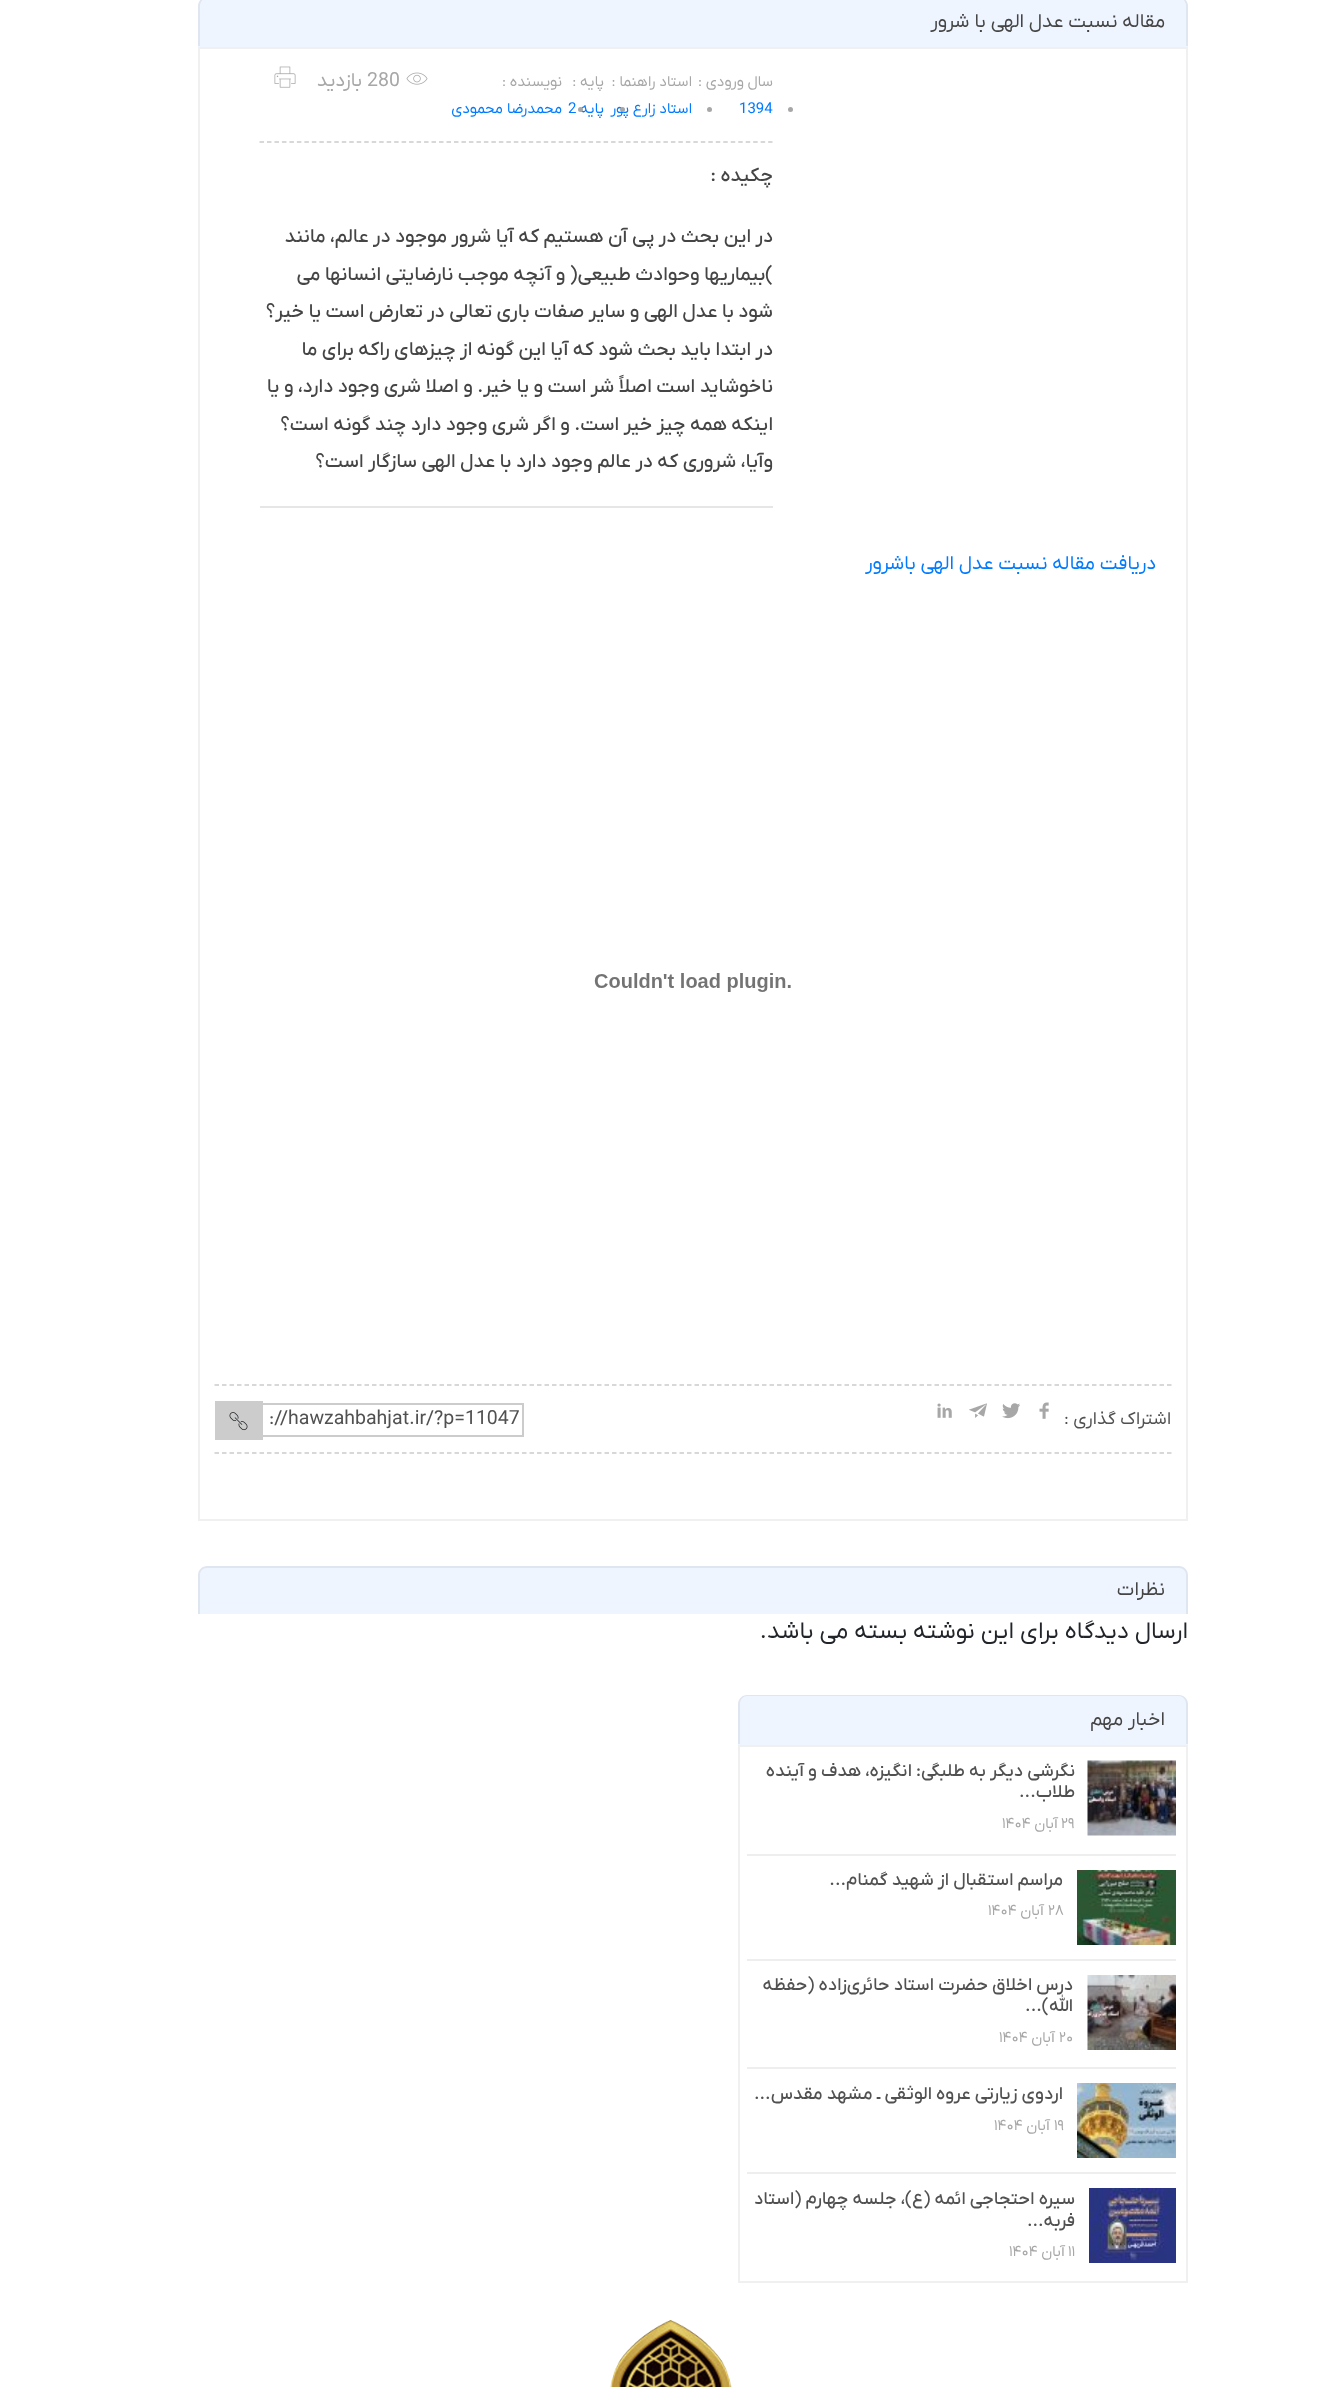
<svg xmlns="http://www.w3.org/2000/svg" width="1341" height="2387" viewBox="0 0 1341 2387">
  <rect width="100%" height="100%" fill="#ffffff"/>
  <path d="M207-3H1179C1184-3 1188 1 1188 6V47H198V6C198 1 202-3 207-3Z" fill="#eff5ff"/>
  <path d="M207-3H1179C1184-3 1188 1 1188 6V46H198V6C198 1 202-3 207-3ZM207-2H1179C1183-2 1186 2 1186 6V46H200V6C200 2 203-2 207-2Z" fill="#000000" fill-opacity="0.06" fill-rule="evenodd"/>
  <text x="1165" y="27" font-family="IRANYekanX" font-size="19.5" direction="rtl" fill="#454545">مقاله نسبت عدل الهی با شرور</text>
  <rect x="199" y="48" width="988" height="1472" fill="none" stroke="#f0f0f0" stroke-width="2"/>
  <path d="M259.5 142H772.5" fill="none" stroke="#cccccc" stroke-width="1.5" stroke-dasharray="4.5 2.98"/>
  <text x="773" y="86" font-family="IRANYekanX" font-size="15" direction="rtl" fill="#a7a7a7">سال ورودی :</text>
  <circle cx="790.5" cy="109.5" r="2.5" fill="#a7a7a7"/>
  <text x="739" y="113" font-family="IRANYekanX" font-size="15" fill="#007bff">1394</text>
  <text x="692" y="86" font-family="IRANYekanX" font-size="15" direction="rtl" fill="#a7a7a7">استاد راهنما :</text>
  <circle cx="709.5" cy="109.5" r="2.5" fill="#a7a7a7"/>
  <text x="692" y="113" font-family="IRANYekanX" font-size="15" direction="rtl" fill="#007bff">استاد زارع پور</text>
  <text x="604" y="86" font-family="IRANYekanX" font-size="15" direction="rtl" fill="#a7a7a7">پایه :</text>
  <circle cx="622.5" cy="109.5" r="2.5" fill="#a7a7a7"/>
  <text x="604" y="113" font-family="IRANYekanX" font-size="15" direction="rtl" fill="#007bff">پایه</text>
  <text x="568" y="113" font-family="IRANYekanX" font-size="15" fill="#007bff">2</text>
  <text x="562" y="86" font-family="IRANYekanX" font-size="15" direction="rtl" fill="#a7a7a7">نویسنده :</text>
  <circle cx="580.5" cy="109.5" r="2.5" fill="#a7a7a7"/>
  <text x="562" y="113" font-family="IRANYekanX" font-size="15" direction="rtl" fill="#007bff">محمدرضا محمودی</text>
  <image x="406" y="72" width="22" height="13" href="img1.png"/>
  <text x="367" y="86" font-family="IRANYekanX" font-size="19.5" fill="#a7a7a7">280</text>
  <text x="362" y="86" font-family="IRANYekanX" font-size="19.5" direction="rtl" fill="#a7a7a7">بازدید</text>
  <image x="274" y="66" width="22" height="22" href="img2.png"/>
  <text x="773" y="181" font-family="IRANYekanX" font-size="19.5" font-weight="500" direction="rtl" fill="#454545">چکیده :</text>
  <text x="773" y="242" font-family="IRANYekanX" font-size="19.5" font-weight="500" direction="rtl" fill="#454545">در این بحث در پی آن هستیم که آیا شرور موجود در عالم، مانند</text>
  <text x="773" y="280" font-family="IRANYekanX" font-size="19.5" font-weight="500" direction="rtl" fill="#454545">)بیماریها وحوادث طبیعی( و آنچه موجب نارضایتی انسانها می</text>
  <text x="773" y="317" font-family="IRANYekanX" font-size="19.5" font-weight="500" direction="rtl" fill="#454545">شود با عدل الهی و سایر صفات باری تعالی در تعارض است یا خیر؟</text>
  <text x="773" y="355" font-family="IRANYekanX" font-size="19.5" font-weight="500" direction="rtl" fill="#454545">در ابتدا باید بحث شود که آیا این گونه از چیزهای راکه برای ما</text>
  <text x="773" y="392" font-family="IRANYekanX" font-size="19.5" font-weight="500" direction="rtl" fill="#454545">ناخوشاید است اصلاً شر است و یا خیر. و اصلا شری وجود دارد، و یا</text>
  <text x="773" y="430" font-family="IRANYekanX" font-size="19.5" font-weight="500" direction="rtl" fill="#454545">اینکه همه چیز خیر است. و اگر شری وجود دارد چند گونه است؟</text>
  <text x="773" y="467" font-family="IRANYekanX" font-size="19.5" font-weight="500" direction="rtl" fill="#454545">وآیا، شروری که در عالم وجود دارد با عدل الهی سازگار است؟</text>
  <rect x="260" y="506" width="513" height="2" fill="#e6e6e6"/>
  <text x="1156" y="569" font-family="IRANYekanX" font-size="19.5" direction="rtl" fill="#007bff">دریافت مقاله نسبت عدل الهی باشرور</text>
  <image x="594" y="973" width="197" height="19" href="img3.png"/>
  <path d="M214.5 1385H1171.5" fill="none" stroke="#cccccc" stroke-width="1.5" stroke-dasharray="4.5 3"/>
  <text x="1171" y="1424" font-family="IRANYekanX" font-size="18" direction="rtl" fill="#515151">اشتراک گذاری :</text>
  <image x="1039" y="1402" width="10" height="17" href="img4.png"/>
  <image x="1002" y="1403" width="18" height="16" href="img5.png"/>
  <image x="969" y="1403" width="18" height="15" href="img6.png"/>
  <image x="937" y="1403" width="15" height="15" href="img7.png"/>
  <rect x="262" y="1404" width="261" height="32" fill="none" stroke="#cccccc" stroke-width="2"/>
  <text x="269" y="1424" font-family="IRANYekanX" font-size="19.5" fill="#515151">://hawzahbahjat.ir/?p=11047</text>
  <rect x="215" y="1401" width="48" height="39" fill="#cccccc"/>
  <image x="229" y="1412" width="19" height="19" href="img8.png"/>
  <path d="M214.5 1453H1171.5" fill="none" stroke="#cccccc" stroke-width="1.5" stroke-dasharray="4.5 3"/>
  <path d="M207 1566H1179C1184 1566 1188 1570 1188 1575V1614H198V1575C198 1570 202 1566 207 1566Z" fill="#eff5ff"/>
  <path d="M207 1566H1179C1184 1566 1188 1570 1188 1575V1614H198V1575C198 1570 202 1566 207 1566ZM207 1568H1179C1183 1568 1186 1571 1186 1575V1614H200V1575C200 1571 203 1568 207 1568Z" fill="#000000" fill-opacity="0.06" fill-rule="evenodd"/>
  <text x="1165" y="1595" font-family="IRANYekanX" font-size="19.5" direction="rtl" fill="#454545">نظرات</text>
  <text x="1188" y="1638" font-family="IRANYekanX" font-size="24" direction="rtl" fill="#212529">ارسال دیدگاه برای این نوشته بسته می باشد.</text>
  <path d="M747 1695H1179C1184 1695 1188 1699 1188 1704V1745H738V1704C738 1699 742 1695 747 1695Z" fill="#eff5ff"/>
  <path d="M747 1695H1179C1184 1695 1188 1699 1188 1704V1744H738V1704C738 1699 742 1695 747 1695ZM747 1696H1179C1183 1696 1186 1700 1186 1704V1744H740V1704C740 1700 743 1696 747 1696Z" fill="#000000" fill-opacity="0.06" fill-rule="evenodd"/>
  <text x="1165" y="1725" font-family="IRANYekanX" font-size="19.5" direction="rtl" fill="#454545">اخبار مهم</text>
  <rect x="739" y="1746" width="448" height="536" fill="none" stroke="#f0f0f0" stroke-width="2"/>
  <rect x="747" y="1854" width="429" height="2" fill="#eeeeee"/>
  <image x="1087" y="1760" width="89" height="76" href="img9.png"/>
  <text x="1075" y="1776" font-family="IRANYekanX" font-size="18" font-weight="500" direction="rtl" fill="#515151">نگرشی دیگر به طلبگی: انگیزه، هدف و آینده</text>
  <text x="1075" y="1797" font-family="IRANYekanX" font-size="18" font-weight="500" direction="rtl" fill="#515151">طلاب...</text>
  <text x="1061" y="1828" font-family="IRANYekanX" font-size="15" fill="#a7a7a7">۲۹</text>
  <text x="1058" y="1828" font-family="IRANYekanX" font-size="15" direction="rtl" fill="#a7a7a7">آبان</text>
  <text x="1002" y="1828" font-family="IRANYekanX" font-size="15" fill="#a7a7a7">۱۴۰۴</text>
  <rect x="747" y="1959" width="429" height="2" fill="#eeeeee"/>
  <image x="1077" y="1870" width="99" height="75" href="img10.png"/>
  <text x="1063" y="1885" font-family="IRANYekanX" font-size="18" font-weight="500" direction="rtl" fill="#515151">مراسم استقبال از شهید گمنام...</text>
  <text x="1048" y="1915" font-family="IRANYekanX" font-size="15" fill="#a7a7a7">۲۸</text>
  <text x="1044" y="1915" font-family="IRANYekanX" font-size="15" direction="rtl" fill="#a7a7a7">آبان</text>
  <text x="988" y="1915" font-family="IRANYekanX" font-size="15" fill="#a7a7a7">۱۴۰۴</text>
  <rect x="747" y="2067" width="429" height="2" fill="#eeeeee"/>
  <image x="1087" y="1975" width="89" height="75" href="img11.png"/>
  <text x="1073" y="1990" font-family="IRANYekanX" font-size="18" font-weight="500" direction="rtl" fill="#515151">درس اخلاق حضرت استاد حائری‌زاده (حفظه</text>
  <text x="1073" y="2011" font-family="IRANYekanX" font-size="18" font-weight="500" direction="rtl" fill="#515151">الله)...</text>
  <text x="1059" y="2042" font-family="IRANYekanX" font-size="15" fill="#a7a7a7">۲۰</text>
  <text x="1055" y="2042" font-family="IRANYekanX" font-size="15" direction="rtl" fill="#a7a7a7">آبان</text>
  <text x="999" y="2042" font-family="IRANYekanX" font-size="15" fill="#a7a7a7">۱۴۰۴</text>
  <rect x="747" y="2172" width="429" height="2" fill="#eeeeee"/>
  <image x="1077" y="2083" width="99" height="75" href="img12.png"/>
  <text x="1063" y="2099" font-family="IRANYekanX" font-size="18" font-weight="500" direction="rtl" fill="#515151">اردوی زیارتی عروه الوثقی ـ مشهد مقدس...</text>
  <text x="1054" y="2130" font-family="IRANYekanX" font-size="15" fill="#a7a7a7">۱۹</text>
  <text x="1050" y="2130" font-family="IRANYekanX" font-size="15" direction="rtl" fill="#a7a7a7">آبان</text>
  <text x="994" y="2130" font-family="IRANYekanX" font-size="15" fill="#a7a7a7">۱۴۰۴</text>
  <image x="1089" y="2188" width="87" height="75" href="img13.png"/>
  <text x="1075" y="2204" font-family="IRANYekanX" font-size="18" font-weight="500" direction="rtl" fill="#515151">سیره احتجاجی ائمه (ع)، جلسه چهارم (استاد</text>
  <text x="1075" y="2226" font-family="IRANYekanX" font-size="18" font-weight="500" direction="rtl" fill="#515151">فربه...</text>
  <text x="1068" y="2256" font-family="IRANYekanX" font-size="15" fill="#a7a7a7">۱۱</text>
  <text x="1065" y="2256" font-family="IRANYekanX" font-size="15" direction="rtl" fill="#a7a7a7">آبان</text>
  <text x="1009" y="2256" font-family="IRANYekanX" font-size="15" fill="#a7a7a7">۱۴۰۴</text>
  <image x="610" y="2320" width="122" height="67" href="img14.png"/>
</svg>
